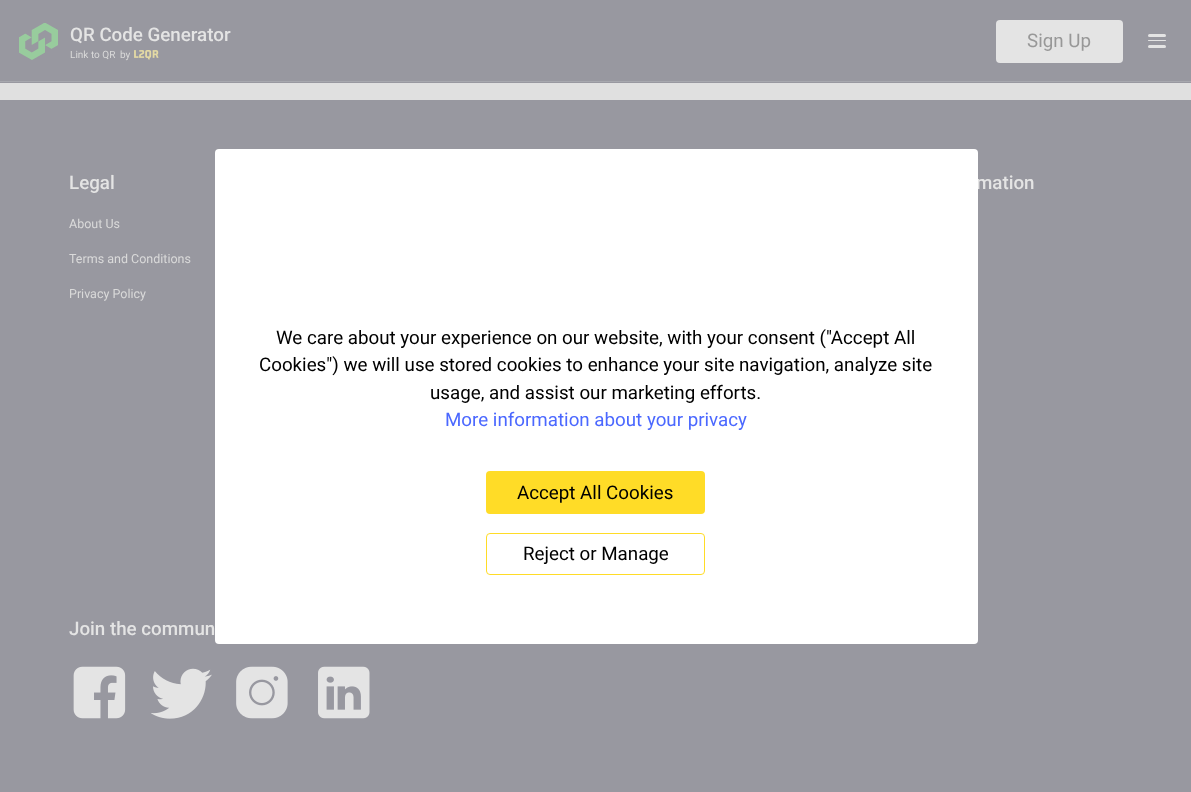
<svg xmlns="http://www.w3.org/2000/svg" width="1191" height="792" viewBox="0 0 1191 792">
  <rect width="100%" height="100%" fill="#9898a0"/>
  <rect x="0" y="81" width="1191" height="1" fill="#a7a8ae"/>
  <image x="19" y="23" width="39" height="37" href="img1.png"/>
  <text x="70" y="41" font-family="Roboto" font-size="18.75" font-weight="500" fill="#e4e4e4">QR Code Generator</text>
  <text x="70" y="58" font-family="Roboto" font-size="10" fill="#dadada">Link to QR</text>
  <text x="120" y="58" font-family="Roboto" font-size="10" fill="#dadada">by</text>
  <image x="134" y="50" width="25" height="10" href="img2.png"/>
  <rect x="996" y="20" width="127" height="43" rx="4" fill="#e4e4e4"/>
  <text x="1027" y="47" font-family="Roboto" font-size="18.75" fill="#989898">Sign Up</text>
  <rect x="1148" y="34" width="18" height="3" rx="1.5" fill="#e4e4e4"/>
  <rect x="1148" y="40" width="18" height="1" rx="0.5" fill="#e4e4e4"/>
  <rect x="1148" y="45" width="18" height="3" rx="1.5" fill="#e4e4e4"/>
  <rect x="0" y="83" width="1191" height="17" fill="#e0e0e0"/>
  <text x="69" y="189" font-family="Roboto" font-size="18.75" font-weight="500" fill="#e4e4e4">Legal</text>
  <text x="69" y="228" font-family="Roboto" font-size="12.5" fill="#dadada">About Us</text>
  <text x="69" y="263" font-family="Roboto" font-size="12.5" fill="#dadada">Terms and Conditions</text>
  <text x="69" y="298" font-family="Roboto" font-size="12.5" fill="#dadada">Privacy Policy</text>
  <text x="976" y="189" font-family="Roboto" font-size="18.75" font-weight="500" fill="#e4e4e4">mation</text>
  <text x="69" y="635" font-family="Roboto" font-size="18.75" font-weight="500" fill="#e4e4e4">Join the commun</text>
  <image x="73" y="666" width="53" height="53" href="img3.png"/>
  <image x="151" y="668" width="61" height="51" href="img4.png"/>
  <image x="236" y="666" width="52" height="53" href="img5.png"/>
  <image x="318" y="666" width="52" height="53" href="img6.png"/>
  <rect x="215" y="149" width="763" height="495" rx="4" fill="#ffffff"/>
  <text x="276" y="344" font-family="Roboto" font-size="18.75" fill="#000000">We care about your experience on our website, with your consent ("Accept All</text>
  <text x="259" y="371" font-family="Roboto" font-size="18.75" fill="#000000">Cookies") we will use stored cookies to enhance your site navigation, analyze site</text>
  <text x="430" y="399" font-family="Roboto" font-size="18.75" fill="#000000">usage, and assist our marketing efforts.</text>
  <text x="445" y="426" font-family="Roboto" font-size="18.75" fill="#4b68ff">More information about your privacy</text>
  <rect x="486" y="471" width="219" height="43" rx="4" fill="#ffdc27"/>
  <text x="517" y="499" font-family="Roboto" font-size="18.75" fill="#000000">Accept All Cookies</text>
  <rect x="486.5" y="533.5" width="218" height="41" rx="3.5" fill="none" stroke="#ffdc27"/>
  <text x="523" y="560" font-family="Roboto" font-size="18.75" fill="#000000">Reject or Manage</text>
</svg>
